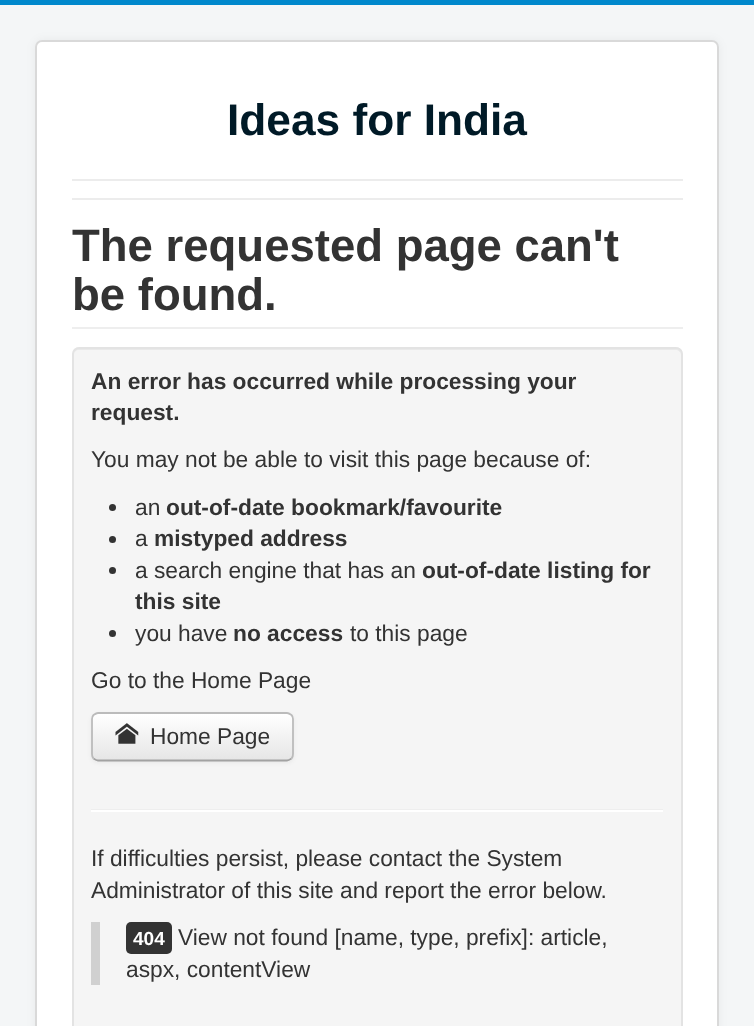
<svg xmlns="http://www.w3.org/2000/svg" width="754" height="1026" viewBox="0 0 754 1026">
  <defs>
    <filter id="blur1" x="-50%" y="-200%" width="200%" height="500%"><feGaussianBlur stdDeviation="5"/></filter>
    <filter id="blur2" x="-50%" y="-200%" width="200%" height="500%"><feGaussianBlur stdDeviation="2"/></filter>
    <clipPath id="clip1"><rect x="91" y="712" width="203" height="49" rx="7"/></clipPath>
    <linearGradient id="g1" gradientUnits="userSpaceOnUse" x1="193" y1="714" x2="193" y2="760"><stop offset="0" stop-color="#ffffff"/><stop offset="1" stop-color="#e6e6e6"/></linearGradient>
  </defs>
  <rect width="100%" height="100%" fill="#f4f6f7"/>
  <rect x="0" y="0" width="754" height="5" fill="#0088cc"/>
  <rect x="35" y="40" width="684" height="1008" rx="7" fill="#000000" fill-opacity="0.05" filter="url(#blur1)"/>
  <rect x="35" y="40" width="684" height="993" rx="7" fill="#ffffff"/>
  <rect x="36" y="41" width="682" height="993" rx="6" fill="none" stroke="#000000" stroke-opacity="0.15" stroke-width="2"/>
  <text x="227" y="135" font-family="Liberation Sans" font-size="44.25" font-weight="bold" fill="#001a27">Ideas for India</text>
  <rect x="72" y="179" width="611" height="2" fill="#ececec"/>
  <rect x="72" y="198" width="611" height="2" fill="#ececec"/>
  <rect x="72" y="327" width="611" height="2" fill="#eeeeee"/>
  <text x="72" y="261" font-family="Liberation Sans" font-size="45.5" font-weight="bold" fill="#333333">The requested page can't</text>
  <text x="72" y="310" font-family="Liberation Sans" font-size="45.5" font-weight="bold" fill="#333333">be found.</text>
  <rect x="72" y="347" width="611" height="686" rx="7" fill="#f5f5f5"/>
  <path d="M79 350H676C678 350 681 352 681 355C681 352 680 348 676 348H79C75 348 74 352 74 355C74 352 76 350 79 350Z" fill="#e9e9e9"/>
  <rect x="73" y="348" width="609" height="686" rx="6" fill="none" stroke="#e3e3e3" stroke-width="2"/>
  <text x="91" y="389" font-family="Liberation Sans" font-size="22.75" font-weight="bold" fill="#333333">An error has occurred while processing your</text>
  <text x="91" y="420" font-family="Liberation Sans" font-size="22.75" font-weight="bold" fill="#333333">request.</text>
  <text x="91" y="467" font-family="Liberation Sans" font-size="22.75" fill="#333333">You may not be able to visit this page because of:</text>
  <circle cx="112.5" cy="507.5" r="3.5" fill="#333333"/>
  <text x="135" y="515" font-family="Liberation Sans" font-size="22.75" fill="#333333">an</text>
  <text x="166" y="515" font-family="Liberation Sans" font-size="22.75" font-weight="bold" fill="#333333">out-of-date bookmark/favourite</text>
  <circle cx="112.5" cy="539.5" r="3.5" fill="#333333"/>
  <text x="135" y="546" font-family="Liberation Sans" font-size="22.75" fill="#333333">a</text>
  <text x="154" y="546" font-family="Liberation Sans" font-size="22.75" font-weight="bold" fill="#333333">mistyped address</text>
  <circle cx="112.5" cy="570.5" r="3.5" fill="#333333"/>
  <text x="135" y="578" font-family="Liberation Sans" font-size="22.75" fill="#333333">a search engine that has an</text>
  <text x="422" y="578" font-family="Liberation Sans" font-size="22.75" font-weight="bold" fill="#333333">out-of-date listing for</text>
  <text x="135" y="609" font-family="Liberation Sans" font-size="22.75" font-weight="bold" fill="#333333">this site</text>
  <circle cx="112.5" cy="633.5" r="3.5" fill="#333333"/>
  <text x="135" y="641" font-family="Liberation Sans" font-size="22.75" fill="#333333">you have</text>
  <text x="233" y="641" font-family="Liberation Sans" font-size="22.75" font-weight="bold" fill="#333333">no access</text>
  <text x="350" y="641" font-family="Liberation Sans" font-size="22.75" fill="#333333">to this page</text>
  <text x="91" y="688" font-family="Liberation Sans" font-size="22.75" fill="#333333">Go to the Home Page</text>
  <rect x="91" y="714" width="203" height="49" rx="7" fill="#000000" fill-opacity="0.05" filter="url(#blur2)"/>
  <g clip-path="url(#clip1)">
    <rect x="91" y="714" width="203" height="46" fill="url(#g1)"/>
  </g>
  <path d="M291.5 758.5C290 759.5 288.5 760.5 287 760.5H98C96.5 760.5 95 759.5 93.5 758.5" fill="none" stroke="#a2a2a2" stroke-width="1.8"/>
  <path d="M93.5 758.5C92.5 757.5 92 756 92 754V719C92 717.5 92.5 716 93.5 715C95 714 96.5 713 98 713H287C288.5 713 290 714 291.5 715C292.5 716 293 717.5 293 719V754C293 756 292.5 757.5 291.5 758.5" fill="none" stroke="#bbbbbb" stroke-width="1.8"/>
  <image x="115" y="723" width="24" height="21" href="img1.png"/>
  <text x="150" y="744" font-family="Liberation Sans" font-size="22.75" fill="#333333">Home Page</text>
  <rect x="91" y="809" width="572" height="1" fill="#eeeeee"/>
  <rect x="91" y="810" width="572" height="2" fill="#ffffff"/>
  <text x="91" y="866" font-family="Liberation Sans" font-size="22.75" fill="#333333">If difficulties persist, please contact the System</text>
  <text x="91" y="898" font-family="Liberation Sans" font-size="22.75" fill="#333333">Administrator of this site and report the error below.</text>
  <rect x="91" y="922" width="9" height="63" fill="#d0d0d0"/>
  <rect x="126" y="922" width="46" height="32" rx="5" fill="#333333"/>
  <text x="133" y="945" font-family="Liberation Sans" font-size="19" font-weight="bold" fill="#ffffff">404</text>
  <text x="178" y="945" font-family="Liberation Sans" font-size="22.75" fill="#333333">View not found [name, type, prefix]: article,</text>
  <text x="126" y="977" font-family="Liberation Sans" font-size="22.75" fill="#333333">aspx, contentView</text>
</svg>
